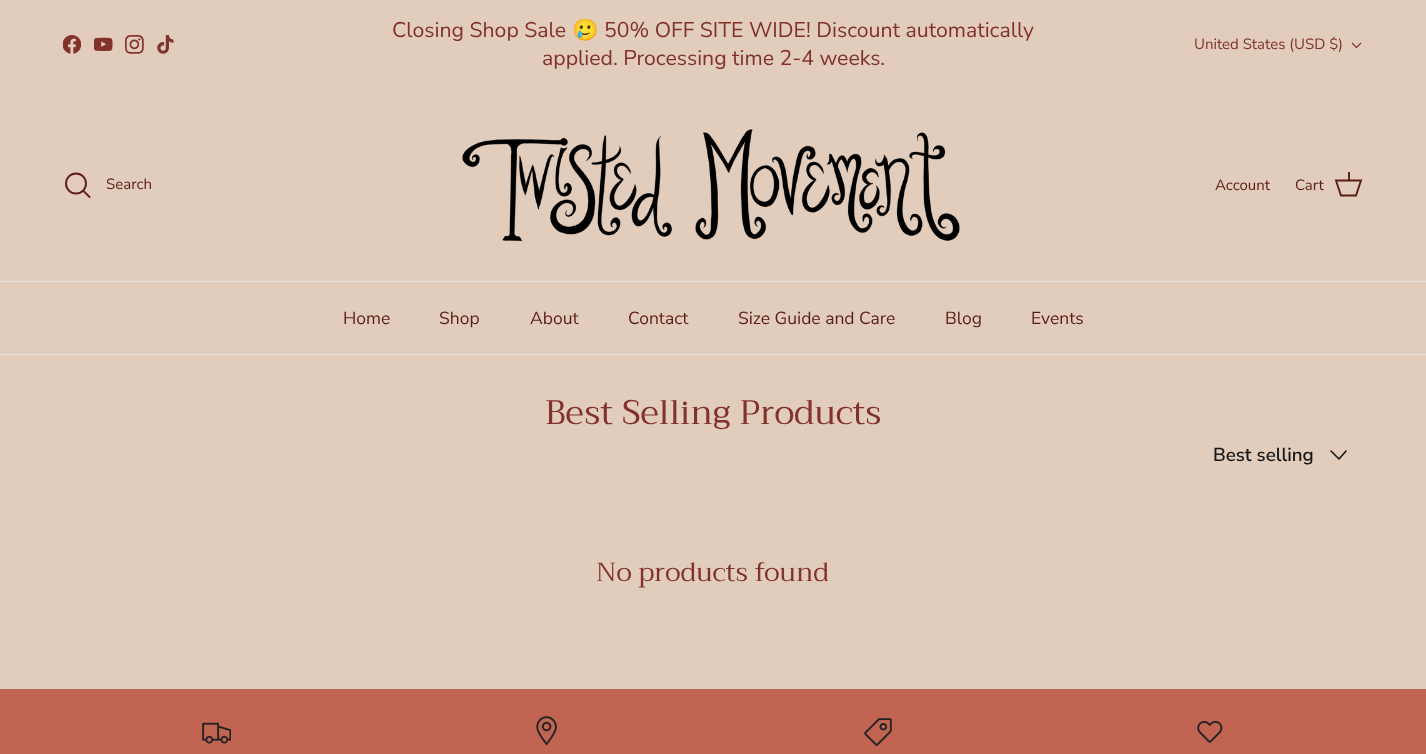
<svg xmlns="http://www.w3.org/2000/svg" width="1426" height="754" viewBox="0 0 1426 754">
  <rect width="100%" height="100%" fill="#e2ccbb"/>
  <image x="63" y="35" width="18" height="19" href="img1.png"/>
  <image x="94" y="37" width="19" height="14" href="img2.png"/>
  <image x="125" y="35" width="19" height="19" href="img3.png"/>
  <image x="157" y="35" width="17" height="19" href="img4.png"/>
  <text x="392" y="37" font-family="Nunito Sans" font-size="21.25" fill="#81322a">Closing Shop Sale</text>
  <text x="572" y="37" font-family="Noto Color Emoji" font-size="21.25" fill="#81322a">🥲</text>
  <text x="604" y="37" font-family="Nunito Sans" font-size="21.25" fill="#81322a">50% OFF SITE WIDE! Discount automatically</text>
  <text x="542" y="65" font-family="Nunito Sans" font-size="21.25" fill="#81322a">applied. Processing time 2-4 weeks.</text>
  <text x="1194" y="49" font-family="Nunito Sans" font-size="15" fill="#81322a">United States (USD $)</text>
  <path d="M1361 43L1356.5 47.5L1352 43" fill="none" stroke="#81322a" stroke-width="1.2"/>
  <rect x="0" y="281" width="1426" height="1" fill="#dfe3e8"/>
  <circle cx="76" cy="183.5" r="10" fill="none" stroke="#5b1d17" stroke-width="1.9"/>
  <text x="106" y="189" font-family="Nunito Sans" font-size="15" fill="#5b1d17">Search</text>
  <path d="M83.5 191L89.5 197" fill="none" stroke="#5b1d17" stroke-width="1.9" stroke-linecap="square"/>
  <image x="462" y="129" width="498" height="113" href="img5.png"/>
  <text x="1215" y="190" font-family="Nunito Sans" font-size="15" fill="#5b1d17">Account</text>
  <text x="1295" y="190" font-family="Nunito Sans" font-size="15" fill="#5b1d17">Cart</text>
  <path d="M1336 180.5H1361L1356 195.5H1341Z" fill="none" stroke="#5b1d17" stroke-width="1.9"/>
  <rect x="1348" y="172" width="2" height="9" fill="#5b1d17" fill-opacity="0.95"/>
  <rect x="0" y="354" width="1426" height="1" fill="#dfe3e8"/>
  <text x="343" y="324" font-family="Nunito Sans" font-size="17.5" fill="#5b1d17">Home</text>
  <text x="439" y="324" font-family="Nunito Sans" font-size="17.5" fill="#5b1d17">Shop</text>
  <text x="530" y="324" font-family="Nunito Sans" font-size="17.5" fill="#5b1d17">About</text>
  <text x="628" y="324" font-family="Nunito Sans" font-size="17.5" fill="#5b1d17">Contact</text>
  <text x="738" y="324" font-family="Nunito Sans" font-size="17.5" fill="#5b1d17">Size Guide and Care</text>
  <text x="945" y="324" font-family="Nunito Sans" font-size="17.5" fill="#5b1d17">Blog</text>
  <text x="1031" y="324" font-family="Nunito Sans" font-size="17.5" fill="#5b1d17">Events</text>
  <text x="545" y="424" font-family="Trirong" font-size="34" fill="#81322a">Best Selling Products</text>
  <text x="1213" y="461" font-family="Nunito Sans" font-size="18.75" font-weight="600" fill="#171717">Best selling</text>
  <path d="M1331 451L1339 459L1346 451" fill="none" stroke="#171717" stroke-width="1.6" stroke-linecap="round" stroke-linejoin="round"/>
  <text x="596" y="581" font-family="Trirong" font-size="26.25" fill="#81322a">No products found</text>
  <rect x="0" y="689" width="1426" height="65" fill="#c16452"/>
  <image x="202" y="722" width="29" height="22" href="img6.png"/>
  <image x="536" y="716" width="21" height="30" href="img7.png"/>
  <image x="864" y="718" width="28" height="28" href="img8.png"/>
  <image x="1197" y="720" width="26" height="23" href="img9.png"/>
</svg>
